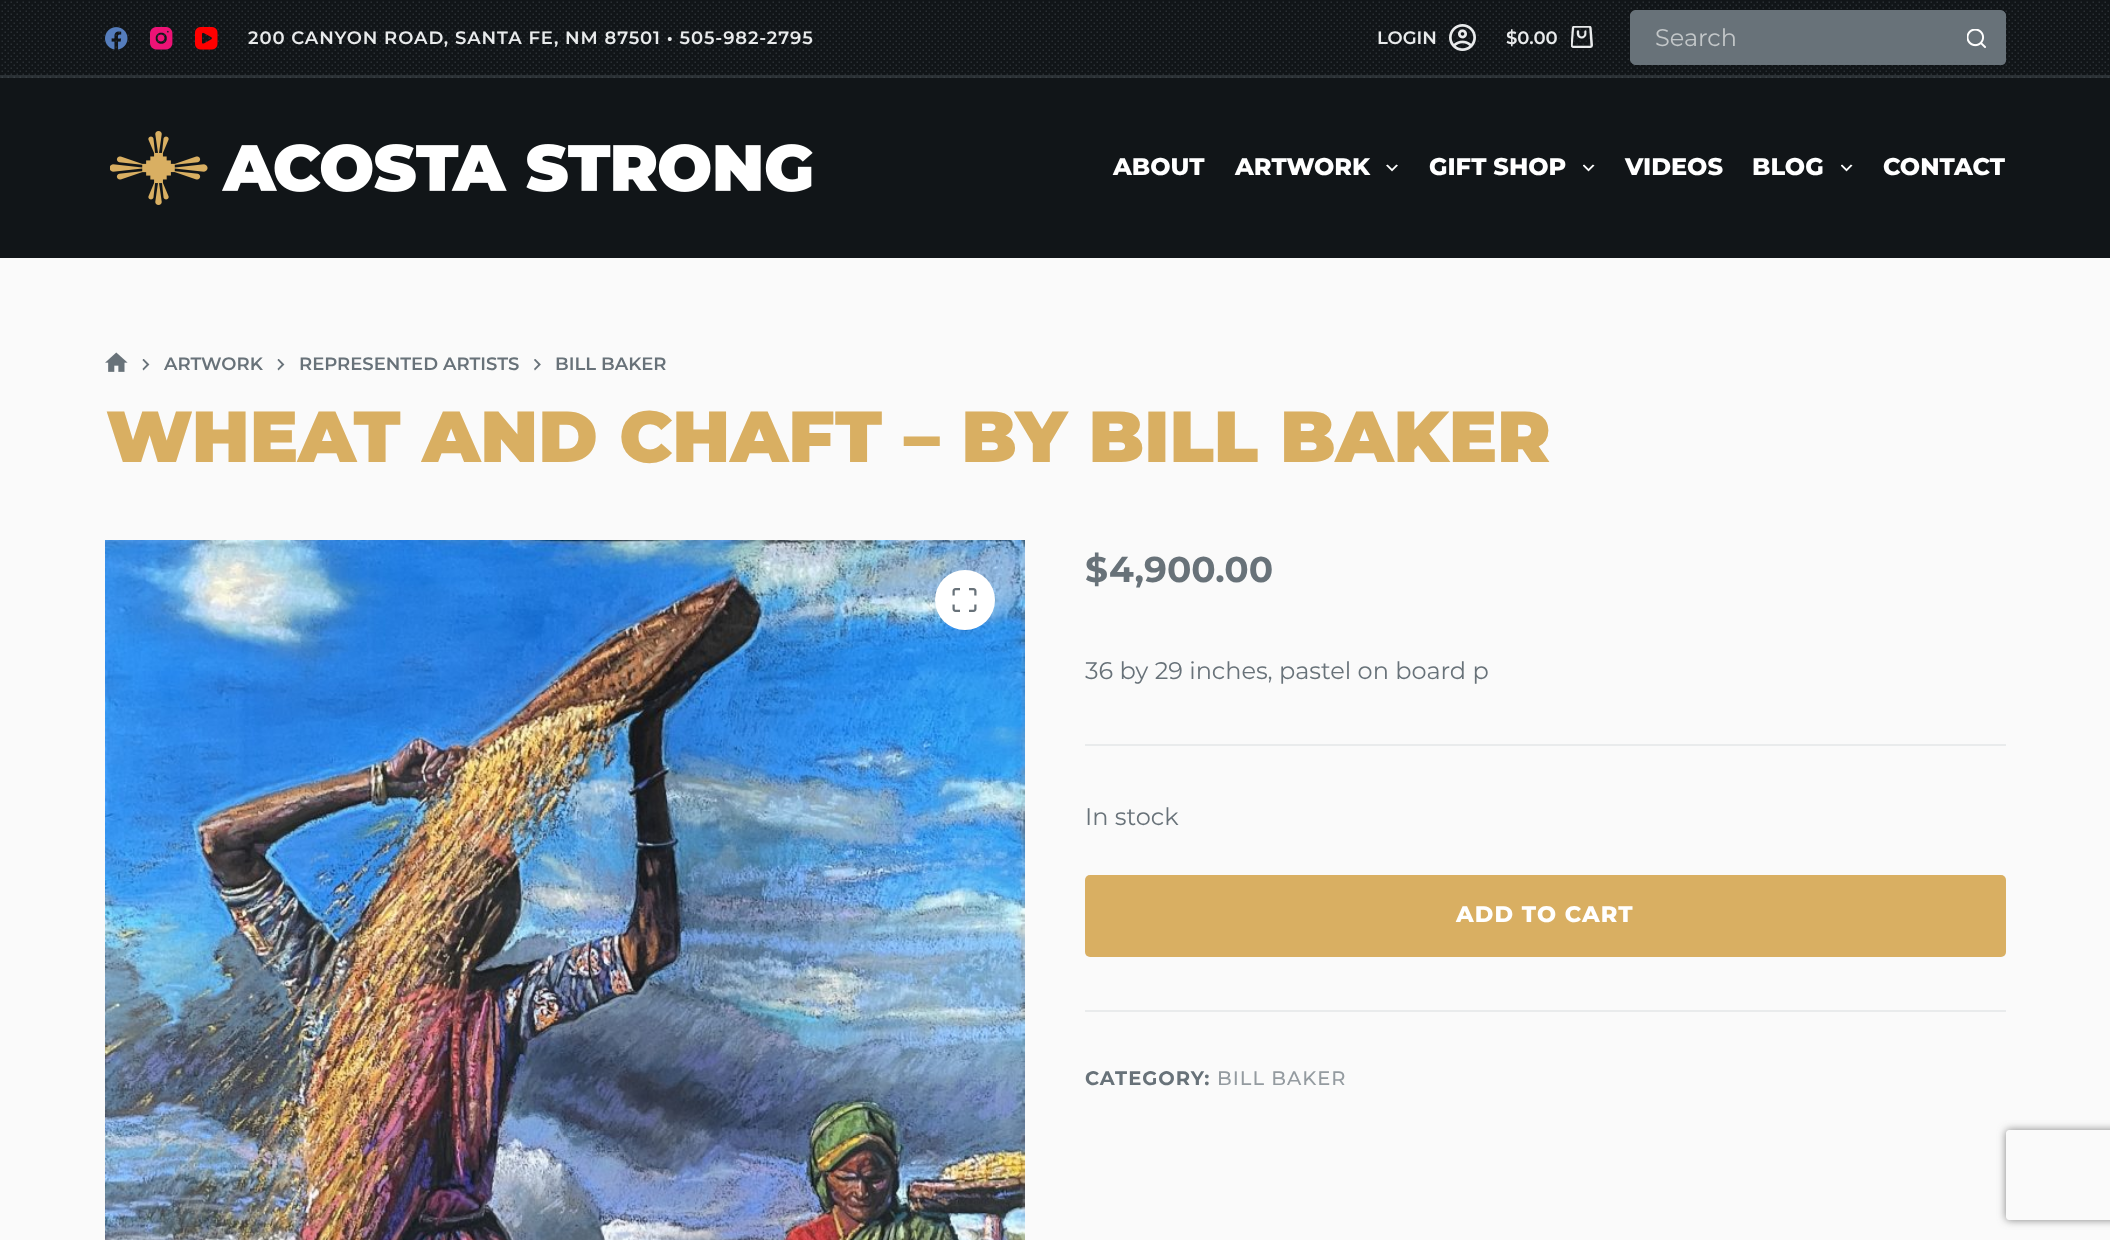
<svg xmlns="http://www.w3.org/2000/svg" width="2110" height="1240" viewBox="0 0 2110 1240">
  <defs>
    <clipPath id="clip1"><path d="M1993 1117H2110V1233H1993ZM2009 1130H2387C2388.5 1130 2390 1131.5 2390 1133V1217C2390 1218.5 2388.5 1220 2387 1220H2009C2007.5 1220 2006 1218.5 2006 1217V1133C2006 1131.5 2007.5 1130 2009 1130Z" clip-rule="evenodd"/></clipPath>
    <filter id="blur1" x="-50%" y="-200%" width="200%" height="500%"><feGaussianBlur stdDeviation="4"/></filter>
  </defs>
  <rect width="100%" height="100%" fill="#fafafa"/>
  <rect x="0" y="0" width="2110" height="258" fill="#111518"/>
  <image x="1" y="1" width="2108" height="77" href="img1.png"/>
  <rect x="0" y="75" width="2110" height="3" fill="#677178" fill-opacity="0.3"/>
  <image x="105" y="27" width="23" height="23" href="img2.png"/>
  <image x="150" y="27" width="23" height="23" href="img3.png"/>
  <image x="195" y="27" width="23" height="23" href="img4.png"/>
  <text x="248" y="44" font-family="Montserrat" font-size="18" font-weight="600" letter-spacing="0.9" fill="#e9ebec">200 CANYON ROAD, SANTA FE, NM 87501 • 505-982-2795</text>
  <text x="1377" y="44" font-family="Montserrat" font-size="18" font-weight="600" fill="#e9ebec">LOGIN</text>
  <image x="1449" y="24" width="27" height="27" href="img5.png"/>
  <text x="1506" y="44" font-family="Montserrat" font-size="18" font-weight="600" fill="#e9ebec">$0.00</text>
  <image x="1571" y="26" width="22" height="22" href="img6.png"/>
  <path d="M1636 11H1952V65H1636C1633 65 1631 63 1631 60V16C1631 13 1633 11 1636 11Z" fill="#687279"/>
  <path d="M1635 10H1952V64H1635C1633 64 1630 62 1630 60V15C1630 13 1633 10 1635 10ZM1635 14H1952V62H1635L1634 61V22C1634 19 1632 14 1635 14Z" fill="#687279" fill-rule="evenodd"/>
  <text x="1655" y="46" font-family="Montserrat" font-size="24" fill="#c3c7c9">Search</text>
  <path d="M1952 11H2001C2004 11 2006 13 2006 16V60C2006 63 2004 65 2001 65H1952Z" fill="#687279"/>
  <path d="M1952 10H2001C2003 10 2006 13 2006 15V60C2006 62 2003 64 2001 64H1952ZM1952 14H2001C2002 14 2002 14 2002 15V60C2002 61 2002 62 2001 62H1952Z" fill="#687279" fill-rule="evenodd"/>
  <image x="1967" y="29" width="19" height="19" href="img7.png"/>
  <image x="110" y="131" width="703" height="74" href="img8.png"/>
  <text x="1113" y="175" font-family="Montserrat" font-size="24" font-weight="800" fill="#ffffff">ABOUT</text>
  <text x="1235" y="175" font-family="Montserrat" font-size="24" font-weight="800" fill="#ffffff">ARTWORK</text>
  <image x="1386" y="164" width="12" height="8" href="img9.png"/>
  <text x="1429" y="175" font-family="Montserrat" font-size="24" font-weight="800" fill="#ffffff">GIFT SHOP</text>
  <image x="1583" y="164" width="12" height="8" href="img10.png"/>
  <text x="1625" y="175" font-family="Montserrat" font-size="24" font-weight="800" fill="#ffffff">VIDEOS</text>
  <text x="1752" y="175" font-family="Montserrat" font-size="24" font-weight="800" fill="#ffffff">BLOG</text>
  <image x="1841" y="164" width="12" height="8" href="img10.png"/>
  <text x="1883" y="175" font-family="Montserrat" font-size="24" font-weight="800" fill="#ffffff">CONTACT</text>
  <image x="105" y="352" width="23" height="20" href="img11.png"/>
  <image x="142" y="359" width="8" height="12" href="img12.png"/>
  <text x="164" y="370" font-family="Montserrat" font-size="18" font-weight="600" fill="#687279">ARTWORK</text>
  <image x="277" y="359" width="8" height="12" href="img12.png"/>
  <text x="299" y="370" font-family="Montserrat" font-size="18" font-weight="600" fill="#687279">REPRESENTED ARTISTS</text>
  <image x="534" y="359" width="7" height="12" href="img13.png"/>
  <text x="555" y="370" font-family="Montserrat" font-size="18" font-weight="600" fill="#687279">BILL BAKER</text>
  <text x="106" y="462" font-family="Montserrat" font-size="72" font-weight="900" fill="#d9af62">WHEAT AND CHAFT – BY BILL BAKER</text>
  <image x="105" y="540" width="920" height="700" href="img14.png"/>
  <circle cx="965" cy="600" r="30" fill="#ffffff"/>
  <image x="952" y="588" width="25" height="24" href="img15.png"/>
  <text x="1085" y="582" font-family="Montserrat" font-size="36" font-weight="bold" fill="#687279">$</text>
  <text x="1109" y="582" font-family="Montserrat" font-size="36" font-weight="bold" fill="#687279">4,900.00</text>
  <text x="1085" y="679" font-family="Montserrat" font-size="24" fill="#687279">36 by 29 inches, pastel on board p</text>
  <rect x="1085" y="744" width="921" height="2" fill="#e9ebec"/>
  <text x="1085" y="825" font-family="Montserrat" font-size="24" fill="#687279">In stock</text>
  <rect x="1085" y="875" width="921" height="82" rx="5" fill="#d9af62"/>
  <text x="1456" y="922" font-family="Montserrat" font-size="22.5" font-weight="800" letter-spacing="1.1" fill="#ffffff">ADD TO CART</text>
  <rect x="1085" y="1010" width="921" height="2" fill="#e9ebec"/>
  <text x="1085" y="1085" font-family="Montserrat" font-size="19.5" font-weight="bold" letter-spacing="1" fill="#687279">CATEGORY:</text>
  <text x="1217" y="1085" font-family="Montserrat" font-size="19.5" font-weight="500" letter-spacing="1" fill="#949ba0">BILL BAKER</text>
  <g clip-path="url(#clip1)">
    <rect x="2006" y="1130" width="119" height="90" rx="3" fill="#808080" filter="url(#blur1)"/>
  </g>
</svg>
